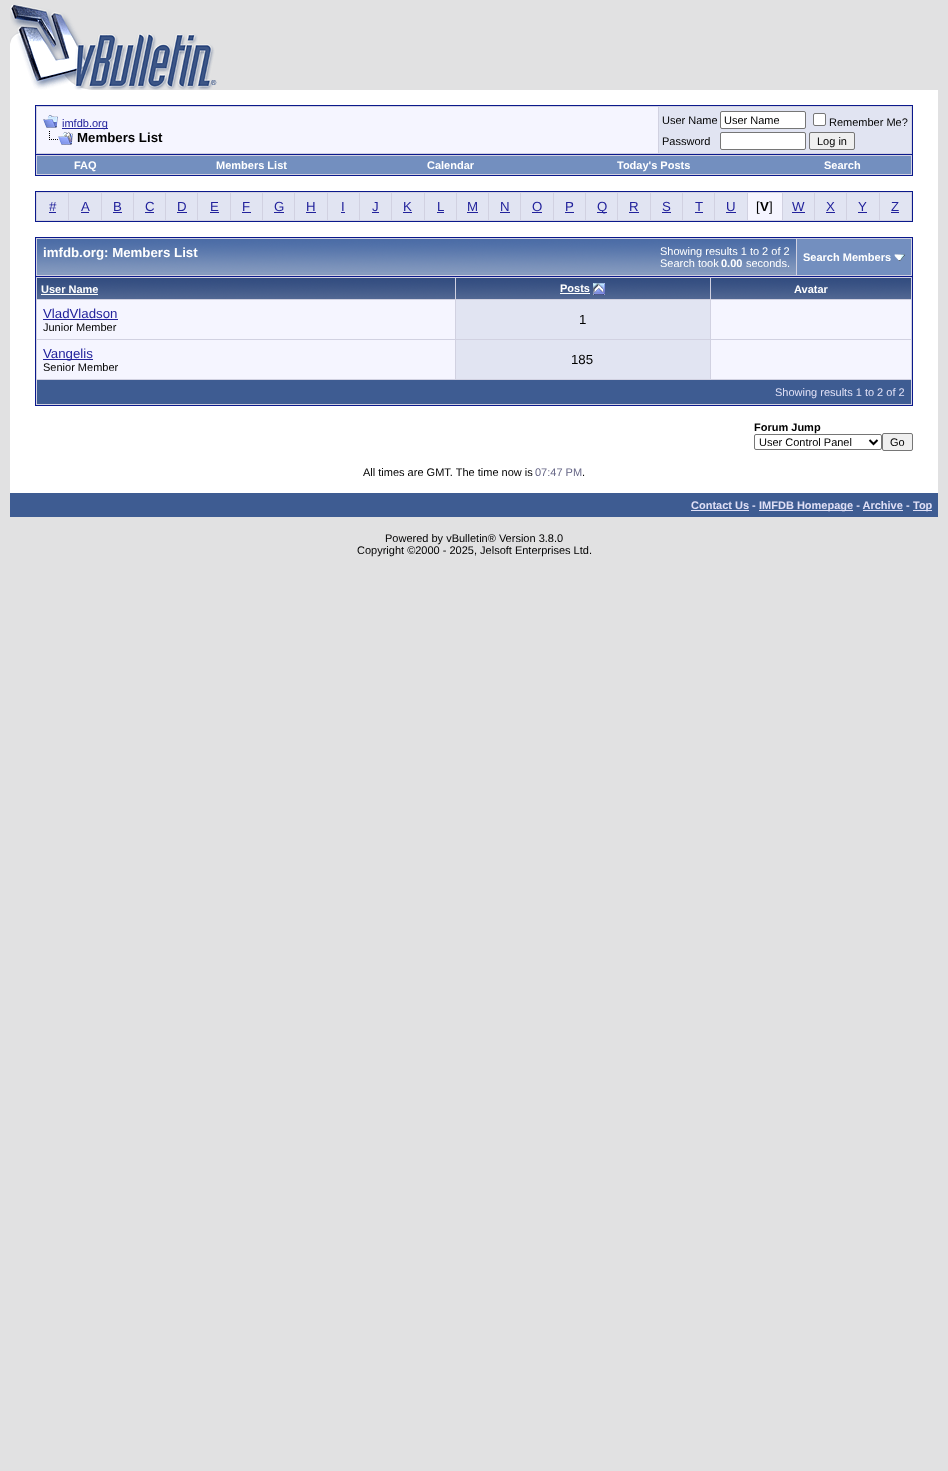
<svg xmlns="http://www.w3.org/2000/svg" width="948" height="1471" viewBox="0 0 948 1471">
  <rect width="100%" height="100%" fill="#e1e1e2"/>
  <image x="10" y="5" width="207" height="85" href="img1.png"/>
  <rect x="10" y="90" width="928" height="403" fill="#ffffff"/>
  <rect x="35.5" y="105.5" width="877" height="49" fill="#d1d1e1" stroke="#0b198c"/>
  <rect x="37" y="107" width="621" height="46" fill="#f5f5ff"/>
  <image x="43" y="115" width="15" height="13" href="img2.png"/>
  <rect x="62" y="128" width="46" height="1" fill="#22229c"/>
  <text x="62" y="127" font-family="Liberation Sans" font-size="11" fill="#22229c">imfdb.org</text>
  <image x="49" y="131" width="24" height="14" href="img3.png"/>
  <text x="77" y="142" font-family="Liberation Sans" font-size="13.25" font-weight="bold" fill="#000000">Members List</text>
  <rect x="659" y="107" width="252" height="46" fill="#e1e4f2"/>
  <text x="662" y="124" font-family="Liberation Sans" font-size="11" fill="#000000">User Name</text>
  <rect x="720.5" y="111.5" width="85" height="17" rx="1.5" fill="#ffffff" stroke="#767676"/>
  <text x="724" y="124" font-family="Liberation Sans" font-size="11" fill="#000000">User Name</text>
  <rect x="813.5" y="113.5" width="12" height="12" rx="1.5" fill="#ffffff" stroke="#767676"/>
  <text x="829" y="126" font-family="Liberation Sans" font-size="11" fill="#000000">Remember Me?</text>
  <text x="662" y="145" font-family="Liberation Sans" font-size="11" fill="#000000">Password</text>
  <rect x="720.5" y="132.5" width="85" height="17" rx="1.5" fill="#ffffff" stroke="#767676"/>
  <rect x="809.5" y="132.5" width="45" height="17" rx="1.5" fill="#efefef" stroke="#767676"/>
  <text x="817" y="145" font-family="Liberation Sans" font-size="11" fill="#000000">Log in</text>
  <rect x="36" y="155" width="876" height="20" fill="#d1d1e1"/>
  <rect x="912" y="155" width="1" height="21" fill="#0b198c"/>
  <rect x="35" y="175" width="878" height="1" fill="#0b198c"/>
  <rect x="35" y="155" width="1" height="21" fill="#0b198c"/>
  <rect x="37" y="156" width="874" height="18" fill="#738fbf"/>
  <text x="74" y="169" font-family="Liberation Sans" font-size="11" font-weight="bold" fill="#ffffff">FAQ</text>
  <text x="216" y="169" font-family="Liberation Sans" font-size="11" font-weight="bold" fill="#ffffff">Members List</text>
  <text x="427" y="169" font-family="Liberation Sans" font-size="11" font-weight="bold" fill="#ffffff">Calendar</text>
  <text x="617" y="169" font-family="Liberation Sans" font-size="11" font-weight="bold" fill="#ffffff">Today's Posts</text>
  <text x="824" y="169" font-family="Liberation Sans" font-size="11" font-weight="bold" fill="#ffffff">Search</text>
  <rect x="35.5" y="191.5" width="877" height="30" fill="#d1d1e1" stroke="#0b198c"/>
  <rect x="37" y="193" width="31" height="27" fill="#e1e4f2"/>
  <text x="49" y="211" font-family="Liberation Sans" font-size="13.25" fill="#22229c">#</text>
  <rect x="49" y="212" width="7" height="1" fill="#22229c"/>
  <rect x="69" y="193" width="32" height="27" fill="#e1e4f2"/>
  <text x="81" y="211" font-family="Liberation Sans" font-size="13.25" fill="#22229c">A</text>
  <rect x="81" y="212" width="8" height="1" fill="#22229c"/>
  <rect x="102" y="193" width="31" height="27" fill="#e1e4f2"/>
  <text x="113" y="211" font-family="Liberation Sans" font-size="13.25" fill="#22229c">B</text>
  <rect x="113" y="212" width="9" height="1" fill="#22229c"/>
  <rect x="134" y="193" width="31" height="27" fill="#e1e4f2"/>
  <text x="145" y="211" font-family="Liberation Sans" font-size="13.25" fill="#22229c">C</text>
  <rect x="145" y="212" width="9" height="1" fill="#22229c"/>
  <rect x="166" y="193" width="31" height="27" fill="#e1e4f2"/>
  <text x="177" y="211" font-family="Liberation Sans" font-size="13.25" fill="#22229c">D</text>
  <rect x="177" y="212" width="10" height="1" fill="#22229c"/>
  <rect x="198" y="193" width="32" height="27" fill="#e1e4f2"/>
  <text x="210" y="211" font-family="Liberation Sans" font-size="13.25" fill="#22229c">E</text>
  <rect x="210" y="212" width="9" height="1" fill="#22229c"/>
  <rect x="231" y="193" width="31" height="27" fill="#e1e4f2"/>
  <text x="242" y="211" font-family="Liberation Sans" font-size="13.25" fill="#22229c">F</text>
  <rect x="242" y="212" width="9" height="1" fill="#22229c"/>
  <rect x="263" y="193" width="31" height="27" fill="#e1e4f2"/>
  <text x="274" y="211" font-family="Liberation Sans" font-size="13.25" fill="#22229c">G</text>
  <rect x="274" y="212" width="10" height="1" fill="#22229c"/>
  <rect x="295" y="193" width="32" height="27" fill="#e1e4f2"/>
  <text x="306" y="211" font-family="Liberation Sans" font-size="13.25" fill="#22229c">H</text>
  <rect x="306" y="212" width="10" height="1" fill="#22229c"/>
  <rect x="328" y="193" width="31" height="27" fill="#e1e4f2"/>
  <text x="341" y="211" font-family="Liberation Sans" font-size="13.25" fill="#22229c">I</text>
  <rect x="341" y="212" width="4" height="1" fill="#22229c"/>
  <rect x="360" y="193" width="31" height="27" fill="#e1e4f2"/>
  <text x="372" y="211" font-family="Liberation Sans" font-size="13.25" fill="#22229c">J</text>
  <rect x="372" y="212" width="7" height="1" fill="#22229c"/>
  <rect x="392" y="193" width="32" height="27" fill="#e1e4f2"/>
  <text x="403" y="211" font-family="Liberation Sans" font-size="13.25" fill="#22229c">K</text>
  <rect x="403" y="212" width="9" height="1" fill="#22229c"/>
  <rect x="425" y="193" width="31" height="27" fill="#e1e4f2"/>
  <text x="437" y="211" font-family="Liberation Sans" font-size="13.25" fill="#22229c">L</text>
  <rect x="437" y="212" width="7" height="1" fill="#22229c"/>
  <rect x="457" y="193" width="31" height="27" fill="#e1e4f2"/>
  <text x="467" y="211" font-family="Liberation Sans" font-size="13.25" fill="#22229c">M</text>
  <rect x="467" y="212" width="11" height="1" fill="#22229c"/>
  <rect x="489" y="193" width="31" height="27" fill="#e1e4f2"/>
  <text x="500" y="211" font-family="Liberation Sans" font-size="13.25" fill="#22229c">N</text>
  <rect x="500" y="212" width="10" height="1" fill="#22229c"/>
  <rect x="521" y="193" width="32" height="27" fill="#e1e4f2"/>
  <text x="532" y="211" font-family="Liberation Sans" font-size="13.25" fill="#22229c">O</text>
  <rect x="532" y="212" width="10" height="1" fill="#22229c"/>
  <rect x="554" y="193" width="31" height="27" fill="#e1e4f2"/>
  <text x="565" y="211" font-family="Liberation Sans" font-size="13.25" fill="#22229c">P</text>
  <rect x="565" y="212" width="9" height="1" fill="#22229c"/>
  <rect x="586" y="193" width="31" height="27" fill="#e1e4f2"/>
  <rect x="597" y="212" width="10" height="1" fill="#22229c"/>
  <text x="597" y="211" font-family="Liberation Sans" font-size="13.25" fill="#22229c">Q</text>
  <rect x="618" y="193" width="32" height="27" fill="#e1e4f2"/>
  <text x="629" y="211" font-family="Liberation Sans" font-size="13.25" fill="#22229c">R</text>
  <rect x="629" y="212" width="10" height="1" fill="#22229c"/>
  <rect x="651" y="193" width="31" height="27" fill="#e1e4f2"/>
  <text x="662" y="211" font-family="Liberation Sans" font-size="13.25" fill="#22229c">S</text>
  <rect x="662" y="212" width="9" height="1" fill="#22229c"/>
  <rect x="683" y="193" width="31" height="27" fill="#e1e4f2"/>
  <text x="695" y="211" font-family="Liberation Sans" font-size="13.25" fill="#22229c">T</text>
  <rect x="695" y="212" width="8" height="1" fill="#22229c"/>
  <rect x="715" y="193" width="32" height="27" fill="#e1e4f2"/>
  <text x="726" y="211" font-family="Liberation Sans" font-size="13.25" fill="#22229c">U</text>
  <rect x="726" y="212" width="10" height="1" fill="#22229c"/>
  <rect x="748" y="193" width="34" height="27" fill="#f5f5ff"/>
  <text x="756" y="211" font-family="Liberation Sans" font-size="13.25" fill="#000000">[</text>
  <text x="760" y="211" font-family="Liberation Sans" font-size="13.25" font-weight="bold" fill="#000000">V</text>
  <text x="769" y="211" font-family="Liberation Sans" font-size="13.25" fill="#000000">]</text>
  <rect x="783" y="193" width="31" height="27" fill="#e1e4f2"/>
  <text x="792" y="211" font-family="Liberation Sans" font-size="13.25" fill="#22229c">W</text>
  <rect x="792" y="212" width="13" height="1" fill="#22229c"/>
  <rect x="815" y="193" width="31" height="27" fill="#e1e4f2"/>
  <text x="826" y="211" font-family="Liberation Sans" font-size="13.25" fill="#22229c">X</text>
  <rect x="826" y="212" width="9" height="1" fill="#22229c"/>
  <rect x="847" y="193" width="32" height="27" fill="#e1e4f2"/>
  <text x="858" y="211" font-family="Liberation Sans" font-size="13.25" fill="#22229c">Y</text>
  <rect x="858" y="212" width="9" height="1" fill="#22229c"/>
  <rect x="880" y="193" width="31" height="27" fill="#e1e4f2"/>
  <text x="891" y="211" font-family="Liberation Sans" font-size="13.25" fill="#22229c">Z</text>
  <rect x="891" y="212" width="8" height="1" fill="#22229c"/>
  <rect x="36" y="238" width="876" height="38" fill="#d1d1e1"/>
  <rect x="35" y="237" width="878" height="1" fill="#0b198c"/>
  <rect x="912" y="237" width="1" height="39" fill="#0b198c"/>
  <rect x="35" y="237" width="1" height="39" fill="#0b198c"/>
  <rect x="37" y="272" width="759" height="3" fill="#869bbf"/>
  <image x="37" y="239" width="759" height="33" href="img4.png"/>
  <text x="43" y="257" font-family="Liberation Sans" font-size="13.25" font-weight="bold" fill="#ffffff">imfdb.org: Members List</text>
  <text x="660" y="255" font-family="Liberation Sans" font-size="11" fill="#ffffff">Showing results 1 to 2 of 2</text>
  <text x="660" y="267" font-family="Liberation Sans" font-size="11" fill="#ffffff">Search took</text>
  <text x="721" y="267" font-family="Liberation Sans" font-size="11" font-weight="bold" fill="#ffffff">0.00</text>
  <text x="746" y="267" font-family="Liberation Sans" font-size="11" fill="#ffffff">seconds.</text>
  <rect x="797" y="239" width="114" height="36" fill="#738fbf"/>
  <text x="803" y="261" font-family="Liberation Sans" font-size="11" font-weight="bold" fill="#ffffff">Search Members</text>
  <image x="894" y="254" width="11" height="7" href="img5.png"/>
  <rect x="35.5" y="276.5" width="877" height="129" fill="#d1d1e1" stroke="#0b198c"/>
  <image x="37" y="278" width="418" height="21" href="img6.png"/>
  <text x="41" y="293" font-family="Liberation Sans" font-size="11" font-weight="bold" fill="#ffffff">User Name</text>
  <rect x="41" y="294" width="57" height="1" fill="#ffffff"/>
  <image x="456" y="278" width="254" height="21" href="img7.png"/>
  <text x="560" y="292" font-family="Liberation Sans" font-size="11" font-weight="bold" fill="#ffffff">Posts</text>
  <rect x="560" y="293" width="30" height="1" fill="#ffffff"/>
  <image x="593" y="283" width="12" height="12" href="img8.png"/>
  <image x="711" y="278" width="200" height="21" href="img9.png"/>
  <text x="794" y="293" font-family="Liberation Sans" font-size="11" font-weight="bold" fill="#ffffff">Avatar</text>
  <rect x="37" y="300" width="418" height="39" fill="#f5f5ff"/>
  <text x="43" y="318" font-family="Liberation Sans" font-size="13.25" fill="#22229c">VladVladson</text>
  <rect x="43" y="319" width="75" height="1" fill="#22229c"/>
  <text x="43" y="331" font-family="Liberation Sans" font-size="11" fill="#000000">Junior Member</text>
  <rect x="456" y="300" width="254" height="39" fill="#e1e4f2"/>
  <text x="579" y="324" font-family="Liberation Sans" font-size="13.25" fill="#000000">1</text>
  <rect x="711" y="300" width="200" height="39" fill="#f5f5ff"/>
  <rect x="37" y="340" width="418" height="39" fill="#f5f5ff"/>
  <rect x="43" y="359" width="50" height="1" fill="#22229c"/>
  <text x="43" y="358" font-family="Liberation Sans" font-size="13.25" fill="#22229c">Vangelis</text>
  <text x="43" y="371" font-family="Liberation Sans" font-size="11" fill="#000000">Senior Member</text>
  <rect x="456" y="340" width="254" height="39" fill="#e1e4f2"/>
  <text x="571" y="364" font-family="Liberation Sans" font-size="13.25" fill="#000000">185</text>
  <rect x="711" y="340" width="200" height="39" fill="#f5f5ff"/>
  <rect x="37" y="380" width="874" height="24" fill="#3e5c92"/>
  <text x="775" y="396" font-family="Liberation Sans" font-size="11" fill="#e0e0f6">Showing results 1 to 2 of 2</text>
  <text x="754" y="431" font-family="Liberation Sans" font-size="11" font-weight="bold" fill="#000000">Forum Jump</text>
  <rect x="754.5" y="434.5" width="127" height="15" rx="1.5" fill="none" stroke="#767676"/>
  <path d="M869.5 440L873.5 444L877.5 440" fill="none" stroke="#000000" stroke-width="2"/>
  <text x="759" y="446" font-family="Liberation Sans" font-size="11" fill="#000000">User Control Panel</text>
  <rect x="882.5" y="433.5" width="30" height="17" rx="1.5" fill="#efefef" stroke="#767676"/>
  <text x="890" y="446" font-family="Liberation Sans" font-size="11" fill="#000000">Go</text>
  <text x="363" y="476" font-family="Liberation Sans" font-size="11" fill="#000000">All times are GMT. The time now is</text>
  <text x="535" y="476" font-family="Liberation Sans" font-size="11" fill="#666686">07:47 PM</text>
  <text x="582" y="476" font-family="Liberation Sans" font-size="11" fill="#000000">.</text>
  <rect x="10" y="493" width="928" height="24" fill="#3e5c92"/>
  <text x="691" y="509" font-family="Liberation Sans" font-size="11" font-weight="bold" fill="#e0e0f6">Contact Us -</text>
  <rect x="691" y="510" width="58" height="1" fill="#e0e0f6"/>
  <rect x="759" y="510" width="94" height="1" fill="#e0e0f6"/>
  <text x="759" y="509" font-family="Liberation Sans" font-size="11" font-weight="bold" fill="#e0e0f6">IMFDB Homepage - Archive -</text>
  <rect x="863" y="510" width="40" height="1" fill="#e0e0f6"/>
  <rect x="913" y="510" width="19" height="1" fill="#e0e0f6"/>
  <text x="913" y="509" font-family="Liberation Sans" font-size="11" font-weight="bold" fill="#e0e0f6">Top</text>
  <text x="385" y="542" font-family="Liberation Sans" font-size="11" fill="#000000">Powered by vBulletin® Version 3.8.0</text>
  <text x="357" y="554" font-family="Liberation Sans" font-size="11" fill="#000000">Copyright ©2000 - 2025, Jelsoft Enterprises Ltd.</text>
</svg>
